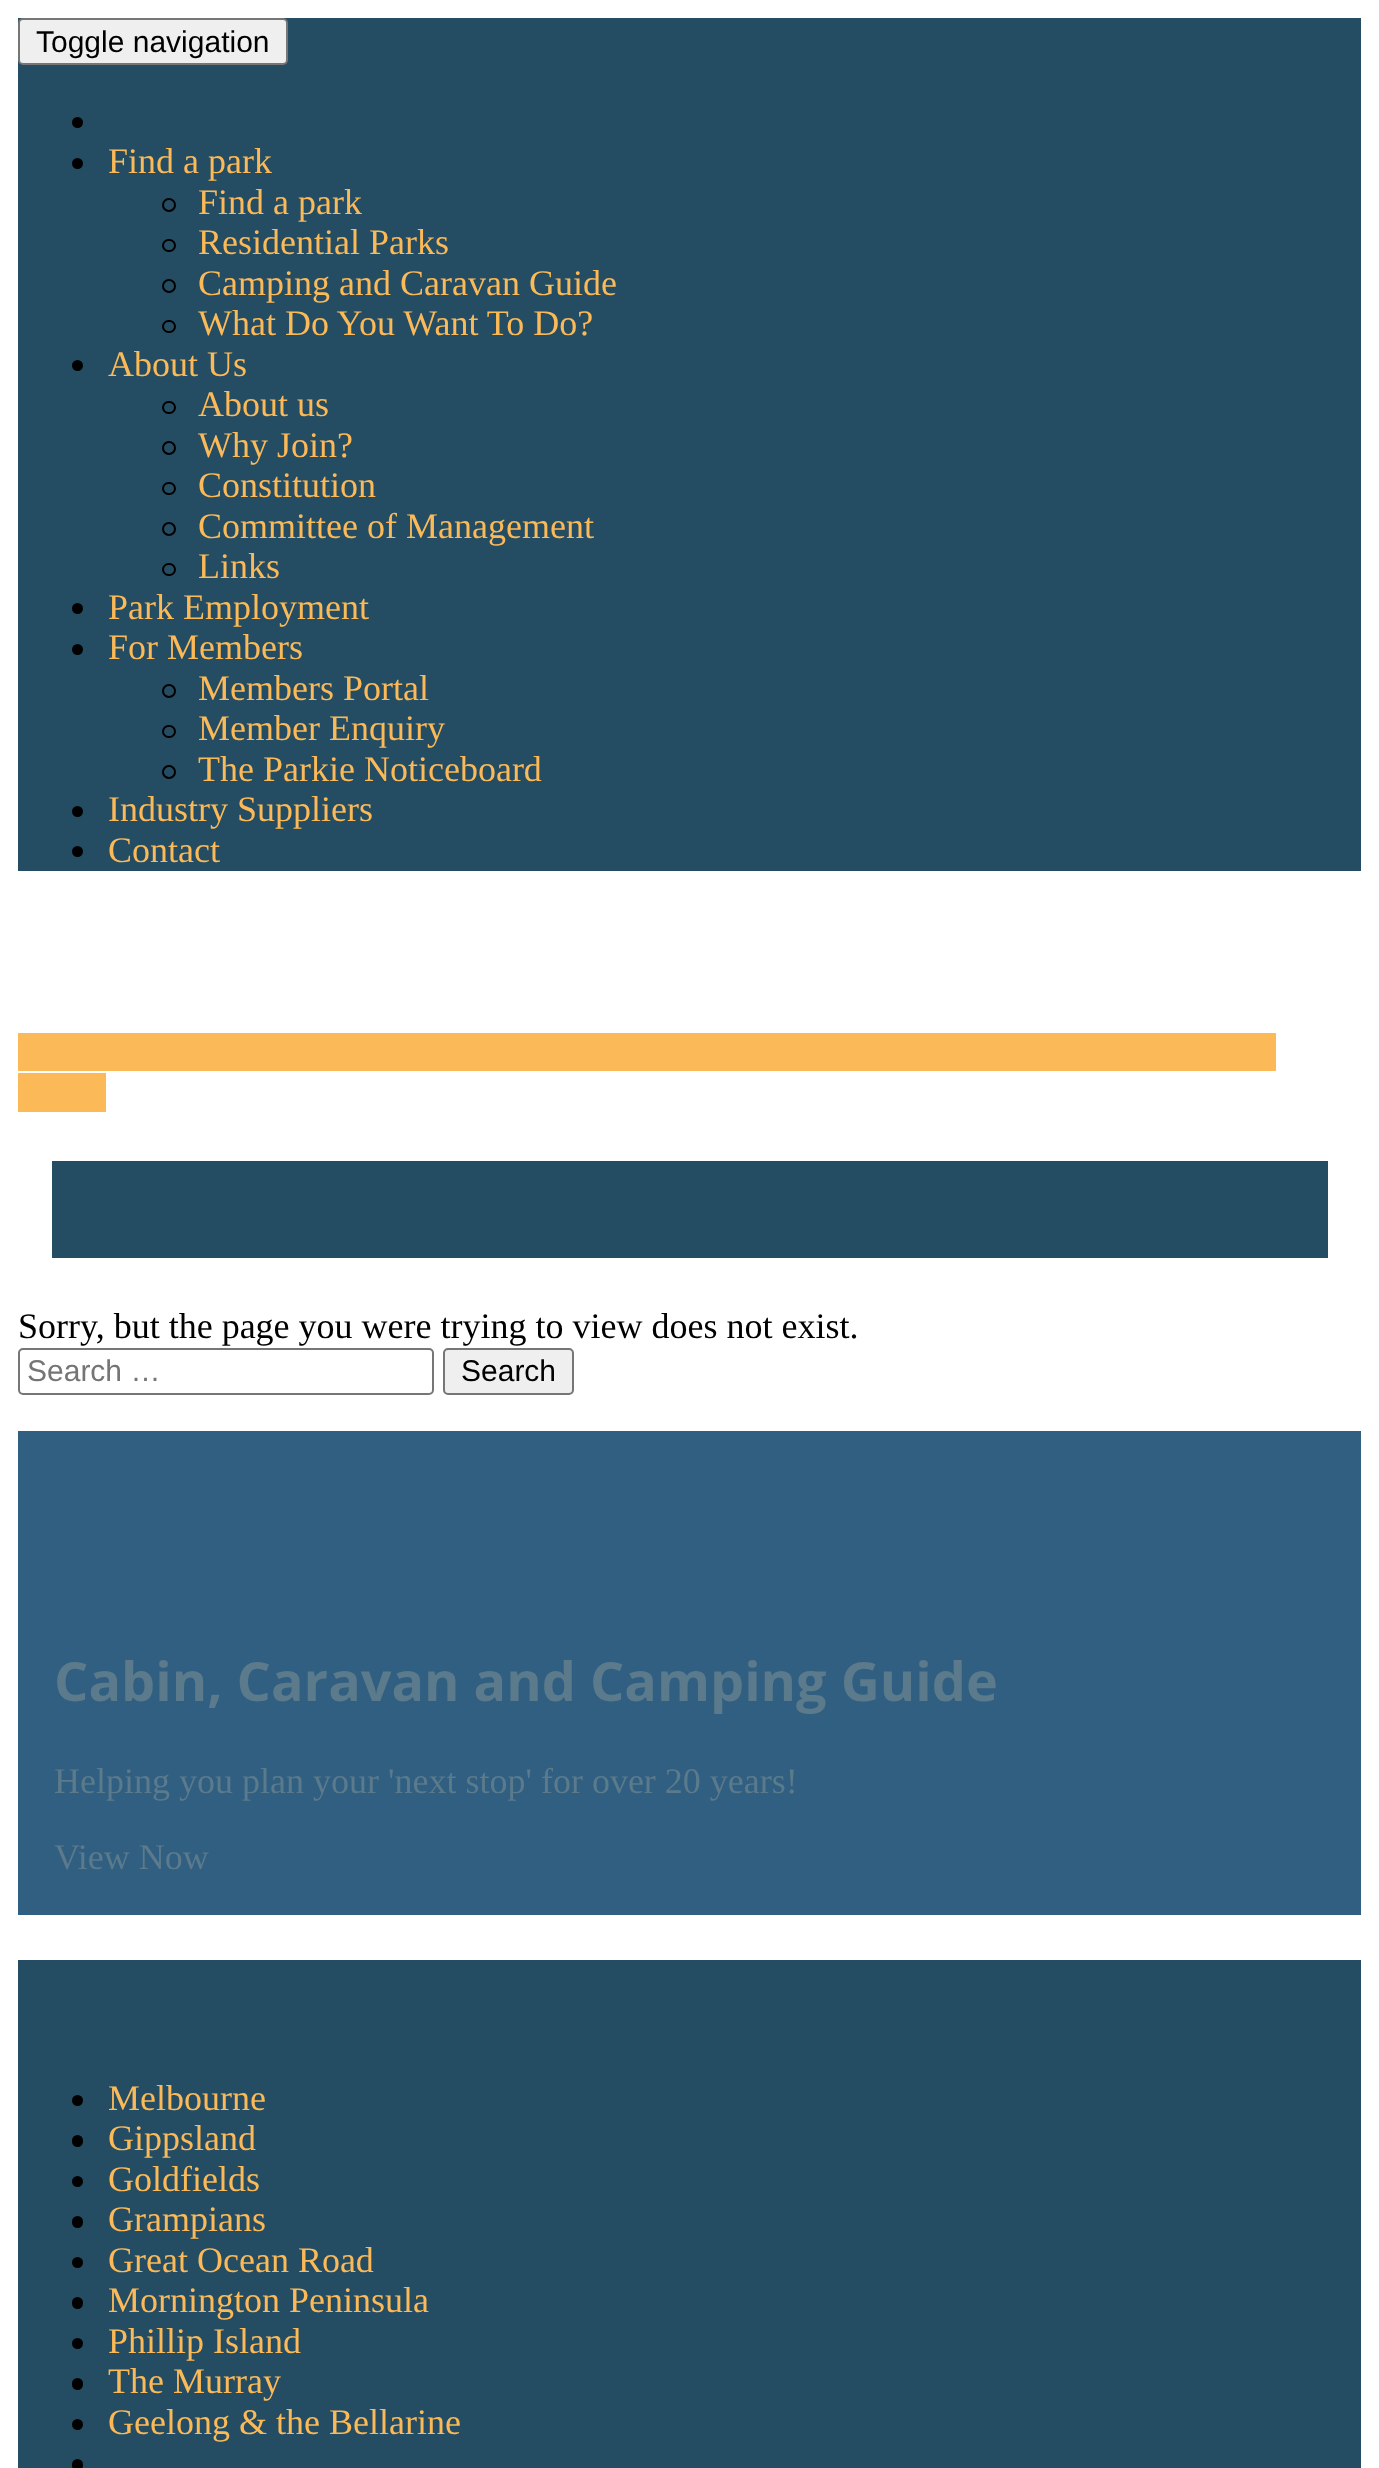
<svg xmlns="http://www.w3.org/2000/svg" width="1379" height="2468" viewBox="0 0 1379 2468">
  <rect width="100%" height="100%" fill="#ffffff"/>
  <rect x="18" y="18" width="1343" height="853" fill="#244d64"/>
  <rect x="19" y="19" width="268" height="45" rx="4" fill="#efefef" stroke="#767676" stroke-width="2"/>
  <text x="36" y="52" font-family="Liberation Sans" font-size="30" fill="#000000">Toggle navigation</text>
  <circle cx="77.5" cy="122.5" r="5.5" fill="#000000"/>
  <circle cx="77.5" cy="163.5" r="5.5" fill="#000000"/>
  <text x="108" y="173" font-family="Liberation Serif" font-size="36" fill="#fbb957">Find a park</text>
  <circle cx="169" cy="205" r="6" fill="none" stroke="#000000" stroke-width="2"/>
  <text x="198" y="214" font-family="Liberation Serif" font-size="36" fill="#fbb957">Find a park</text>
  <rect x="163" y="240" width="12" height="11" rx="5.5" fill="none" stroke="#000000" stroke-width="2"/>
  <text x="198" y="254" font-family="Liberation Serif" font-size="36" fill="#fbb957">Residential Parks</text>
  <circle cx="169" cy="286" r="6" fill="none" stroke="#000000" stroke-width="2"/>
  <text x="198" y="295" font-family="Liberation Serif" font-size="36" fill="#fbb957">Camping and Caravan Guide</text>
  <rect x="163" y="321" width="12" height="11" rx="5.5" fill="none" stroke="#000000" stroke-width="2"/>
  <text x="198" y="335" font-family="Liberation Serif" font-size="36" fill="#fbb957">What Do You Want To Do?</text>
  <circle cx="77.5" cy="365.5" r="5.5" fill="#000000"/>
  <text x="108" y="376" font-family="Liberation Serif" font-size="36" fill="#fbb957">About Us</text>
  <rect x="163" y="402" width="12" height="11" rx="5.5" fill="none" stroke="#000000" stroke-width="2"/>
  <text x="198" y="416" font-family="Liberation Serif" font-size="36" fill="#fbb957">About us</text>
  <circle cx="169" cy="448" r="6" fill="none" stroke="#000000" stroke-width="2"/>
  <text x="198" y="457" font-family="Liberation Serif" font-size="36" fill="#fbb957">Why Join?</text>
  <rect x="163" y="483" width="12" height="11" rx="5.5" fill="none" stroke="#000000" stroke-width="2"/>
  <text x="198" y="497" font-family="Liberation Serif" font-size="36" fill="#fbb957">Constitution</text>
  <circle cx="169" cy="529" r="6" fill="none" stroke="#000000" stroke-width="2"/>
  <text x="198" y="538" font-family="Liberation Serif" font-size="36" fill="#fbb957">Committee of Management</text>
  <rect x="163" y="564" width="12" height="11" rx="5.5" fill="none" stroke="#000000" stroke-width="2"/>
  <text x="198" y="578" font-family="Liberation Serif" font-size="36" fill="#fbb957">Links</text>
  <circle cx="77.5" cy="608.5" r="5.5" fill="#000000"/>
  <text x="108" y="619" font-family="Liberation Serif" font-size="36" fill="#fbb957">Park Employment</text>
  <circle cx="77.5" cy="649.5" r="5.5" fill="#000000"/>
  <text x="108" y="659" font-family="Liberation Serif" font-size="36" fill="#fbb957">For Members</text>
  <circle cx="169" cy="691" r="6" fill="none" stroke="#000000" stroke-width="2"/>
  <text x="198" y="700" font-family="Liberation Serif" font-size="36" fill="#fbb957">Members Portal</text>
  <rect x="163" y="726" width="12" height="11" rx="5.5" fill="none" stroke="#000000" stroke-width="2"/>
  <text x="198" y="740" font-family="Liberation Serif" font-size="36" fill="#fbb957">Member Enquiry</text>
  <circle cx="169" cy="772" r="6" fill="none" stroke="#000000" stroke-width="2"/>
  <text x="198" y="781" font-family="Liberation Serif" font-size="36" fill="#fbb957">The Parkie Noticeboard</text>
  <circle cx="77.5" cy="811.5" r="5.5" fill="#000000"/>
  <text x="108" y="821" font-family="Liberation Serif" font-size="36" fill="#fbb957">Industry Suppliers</text>
  <circle cx="77.5" cy="851.5" r="5.5" fill="#000000"/>
  <text x="108" y="862" font-family="Liberation Serif" font-size="36" fill="#fbb957">Contact</text>
  <rect x="18" y="1033" width="1258" height="38" fill="#fbb957"/>
  <rect x="18" y="1073" width="88" height="39" fill="#fbb957"/>
  <rect x="52" y="1161" width="1276" height="97" fill="#244d64"/>
  <text x="18" y="1338" font-family="Liberation Serif" font-size="36" fill="#000000">Sorry, but the page you were trying to view does not exist.</text>
  <rect x="19" y="1349" width="414" height="45" rx="4" fill="none" stroke="#767676" stroke-width="2"/>
  <text x="27" y="1381" font-family="Liberation Sans" font-size="30" fill="#757575">Search …</text>
  <rect x="444" y="1349" width="129" height="45" rx="4" fill="#efefef" stroke="#767676" stroke-width="2"/>
  <text x="461" y="1381" font-family="Liberation Sans" font-size="30" fill="#000000">Search</text>
  <rect x="18" y="1431" width="1343" height="484" fill="#305f82"/>
  <text x="54" y="1701" font-family="Open Sans" font-size="54" font-weight="bold" fill="#5b7a8b">Cabin, Caravan and Camping Guide</text>
  <text x="54" y="1793" font-family="Liberation Serif" font-size="36" fill="#5b7a8b">Helping you plan your 'next stop' for over 20 years!</text>
  <text x="54" y="1869" font-family="Liberation Serif" font-size="36" fill="#5b7a8b">View Now</text>
  <rect x="18" y="1960" width="1343" height="508" fill="#244d64"/>
  <circle cx="77.5" cy="2100.5" r="5.5" fill="#000000"/>
  <text x="108" y="2110" font-family="Liberation Serif" font-size="36" fill="#fbb957">Melbourne</text>
  <rect x="72" y="2135" width="11" height="12" rx="5.5" fill="#000000"/>
  <text x="108" y="2150" font-family="Liberation Serif" font-size="36" fill="#fbb957">Gippsland</text>
  <circle cx="77.5" cy="2181.5" r="5.5" fill="#000000"/>
  <text x="108" y="2191" font-family="Liberation Serif" font-size="36" fill="#fbb957">Goldfields</text>
  <rect x="72" y="2216" width="11" height="12" rx="5.5" fill="#000000"/>
  <text x="108" y="2231" font-family="Liberation Serif" font-size="36" fill="#fbb957">Grampians</text>
  <circle cx="77.5" cy="2262.5" r="5.5" fill="#000000"/>
  <text x="108" y="2272" font-family="Liberation Serif" font-size="36" fill="#fbb957">Great Ocean Road</text>
  <rect x="72" y="2297" width="11" height="12" rx="5.5" fill="#000000"/>
  <text x="108" y="2312" font-family="Liberation Serif" font-size="36" fill="#fbb957">Mornington Peninsula</text>
  <circle cx="77.5" cy="2343.5" r="5.5" fill="#000000"/>
  <text x="108" y="2353" font-family="Liberation Serif" font-size="36" fill="#fbb957">Phillip Island</text>
  <rect x="72" y="2378" width="11" height="12" rx="5.5" fill="#000000"/>
  <text x="108" y="2393" font-family="Liberation Serif" font-size="36" fill="#fbb957">The Murray</text>
  <circle cx="77.5" cy="2424.5" r="5.5" fill="#000000"/>
  <text x="108" y="2434" font-family="Liberation Serif" font-size="36" fill="#fbb957">Geelong &amp; the Bellarine</text>
  <rect x="72" y="2459" width="11" height="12" rx="5.5" fill="#000000"/>
</svg>
